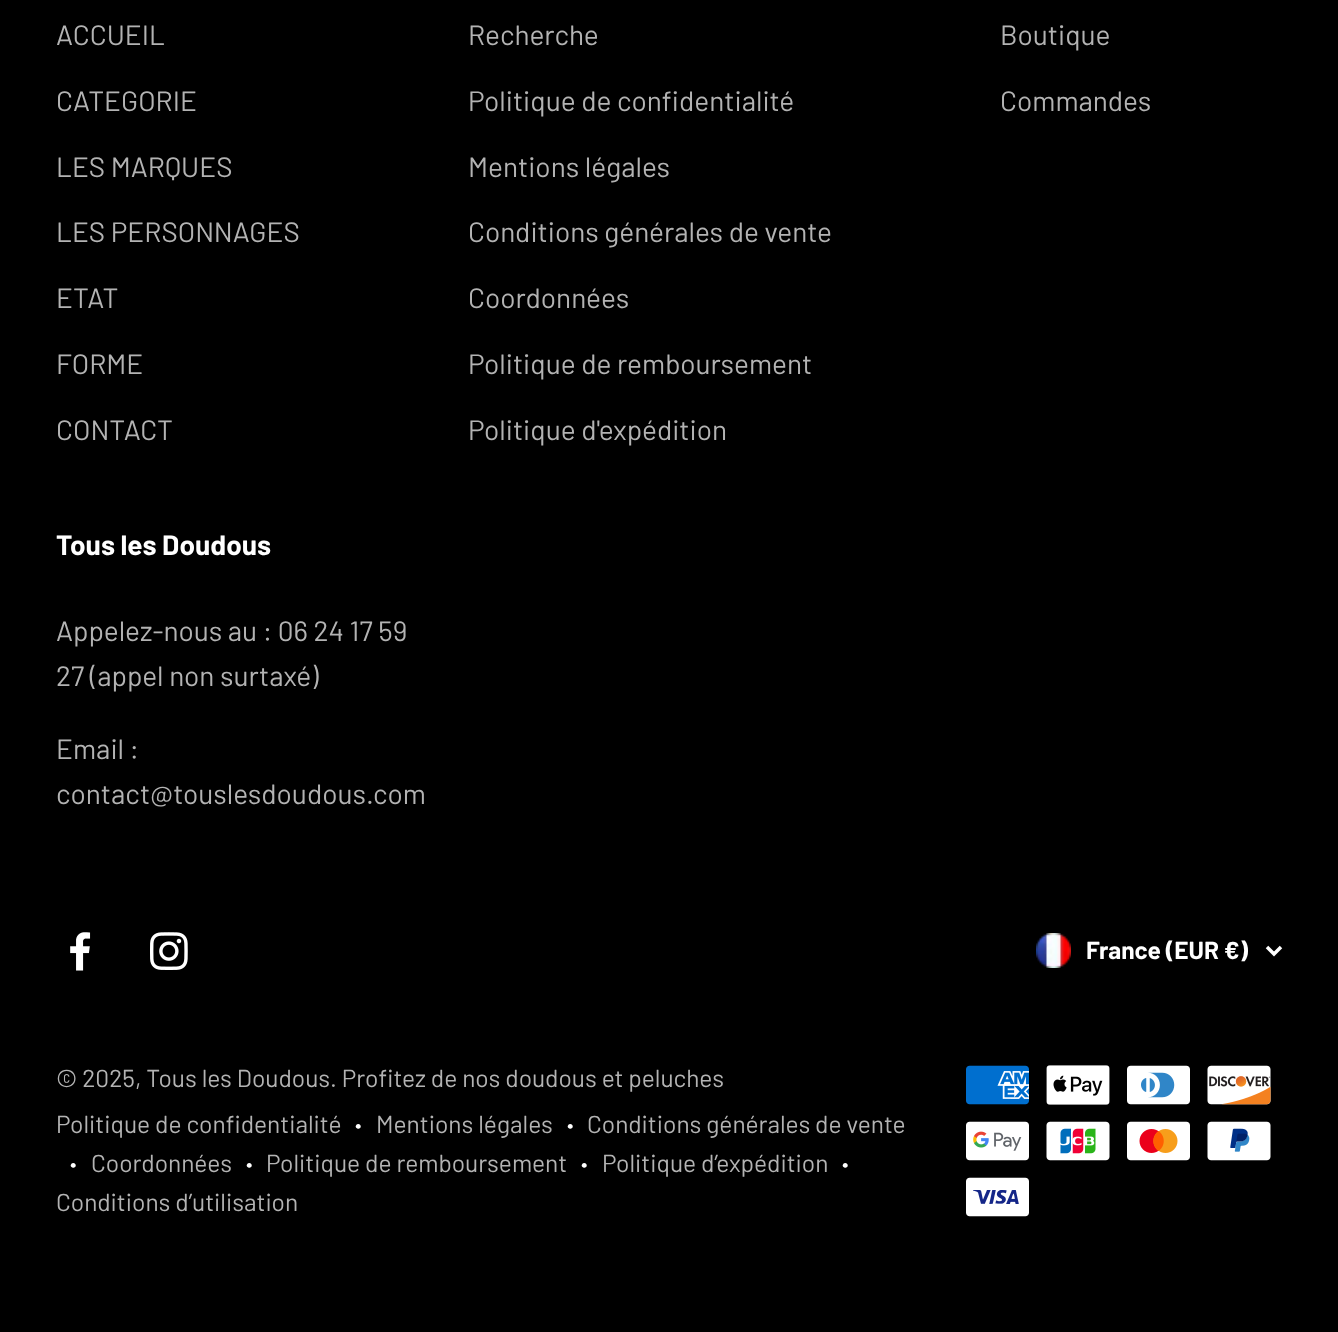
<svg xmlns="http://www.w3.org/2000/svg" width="1338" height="1332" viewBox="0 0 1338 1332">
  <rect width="100%" height="100%" fill="#000000"/>
  <text x="56" y="45" font-family="Barlow" font-size="28" fill="#b3b3b3">ACCUEIL</text>
  <text x="56" y="111" font-family="Barlow" font-size="28" fill="#b3b3b3">CATEGORIE</text>
  <text x="56" y="177" font-family="Barlow" font-size="28" fill="#b3b3b3">LES MARQUES</text>
  <text x="56" y="242" font-family="Barlow" font-size="28" fill="#b3b3b3">LES PERSONNAGES</text>
  <text x="56" y="308" font-family="Barlow" font-size="28" fill="#b3b3b3">ETAT</text>
  <text x="56" y="374" font-family="Barlow" font-size="28" fill="#b3b3b3">FORME</text>
  <text x="56" y="440" font-family="Barlow" font-size="28" fill="#b3b3b3">CONTACT</text>
  <text x="468" y="45" font-family="Barlow" font-size="28" fill="#b3b3b3">Recherche</text>
  <text x="468" y="111" font-family="Barlow" font-size="28" fill="#b3b3b3">Politique de confidentialité</text>
  <text x="468" y="177" font-family="Barlow" font-size="28" fill="#b3b3b3">Mentions légales</text>
  <text x="468" y="242" font-family="Barlow" font-size="28" fill="#b3b3b3">Conditions générales de vente</text>
  <text x="468" y="308" font-family="Barlow" font-size="28" fill="#b3b3b3">Coordonnées</text>
  <text x="468" y="374" font-family="Barlow" font-size="28" fill="#b3b3b3">Politique de remboursement</text>
  <text x="468" y="440" font-family="Barlow" font-size="28" fill="#b3b3b3">Politique d'expédition</text>
  <text x="1000" y="45" font-family="Barlow" font-size="28" fill="#b3b3b3">Boutique</text>
  <text x="1000" y="111" font-family="Barlow" font-size="28" fill="#b3b3b3">Commandes</text>
  <text x="56" y="555" font-family="Barlow" font-size="28" font-weight="bold" fill="#ffffff">Tous les Doudous</text>
  <text x="56" y="641" font-family="Barlow" font-size="28" fill="#b3b3b3">Appelez-nous au : 06 24 17 59</text>
  <text x="56" y="686" font-family="Barlow" font-size="28" fill="#b3b3b3">27 (appel non surtaxé)</text>
  <text x="56" y="759" font-family="Barlow" font-size="28" fill="#b3b3b3">Email :</text>
  <text x="56" y="804" font-family="Barlow" font-size="28" fill="#b3b3b3">contact@touslesdoudous.com</text>
  <image x="70" y="932" width="21" height="39" href="img1.png"/>
  <image x="150" y="932" width="38" height="38" href="img2.png"/>
  <image x="1036" y="933" width="35" height="35" href="img3.png"/>
  <text x="1086" y="959" font-family="Barlow" font-size="24.5" font-weight="bold" fill="#ffffff">France (EUR €)</text>
  <path d="M1267 947L1274 954L1281 947" fill="none" stroke="#ffffff" stroke-width="3.5"/>
  <text x="56" y="1087" font-family="Barlow" font-size="24.5" fill="#b3b3b3">© 2025, Tous les Doudous. Profitez de nos doudous et peluches</text>
  <text x="56" y="1133" font-family="Barlow" font-size="24.5" fill="#b3b3b3">Politique de confidentialité</text>
  <text x="355" y="1132" font-family="Barlow" font-size="21" fill="#ffffff">•</text>
  <text x="376" y="1133" font-family="Barlow" font-size="24.5" fill="#b3b3b3">Mentions légales</text>
  <text x="567" y="1132" font-family="Barlow" font-size="21" fill="#ffffff">•</text>
  <text x="587" y="1133" font-family="Barlow" font-size="24.5" fill="#b3b3b3">Conditions générales de vente</text>
  <text x="70" y="1171" font-family="Barlow" font-size="21" fill="#ffffff">•</text>
  <text x="91" y="1172" font-family="Barlow" font-size="24.5" fill="#b3b3b3">Coordonnées</text>
  <text x="246" y="1171" font-family="Barlow" font-size="21" fill="#ffffff">•</text>
  <text x="266" y="1172" font-family="Barlow" font-size="24.5" fill="#b3b3b3">Politique de remboursement</text>
  <text x="581" y="1171" font-family="Barlow" font-size="21" fill="#ffffff">•</text>
  <text x="602" y="1172" font-family="Barlow" font-size="24.5" fill="#b3b3b3">Politique d’expédition</text>
  <text x="842" y="1171" font-family="Barlow" font-size="21" fill="#ffffff">•</text>
  <text x="56" y="1211" font-family="Barlow" font-size="24.5" fill="#b3b3b3">Conditions d’utilisation</text>
  <image x="966" y="1065" width="63" height="40" href="img4.png"/>
  <image x="1046" y="1065" width="64" height="40" href="img5.png"/>
  <image x="1127" y="1065" width="63" height="40" href="img6.png"/>
  <image x="1207" y="1065" width="64" height="40" href="img7.png"/>
  <image x="966" y="1121" width="63" height="40" href="img8.png"/>
  <image x="1046" y="1121" width="64" height="40" href="img9.png"/>
  <image x="1127" y="1121" width="63" height="40" href="img10.png"/>
  <image x="1207" y="1121" width="64" height="40" href="img11.png"/>
  <image x="966" y="1177" width="63" height="40" href="img12.png"/>
</svg>
